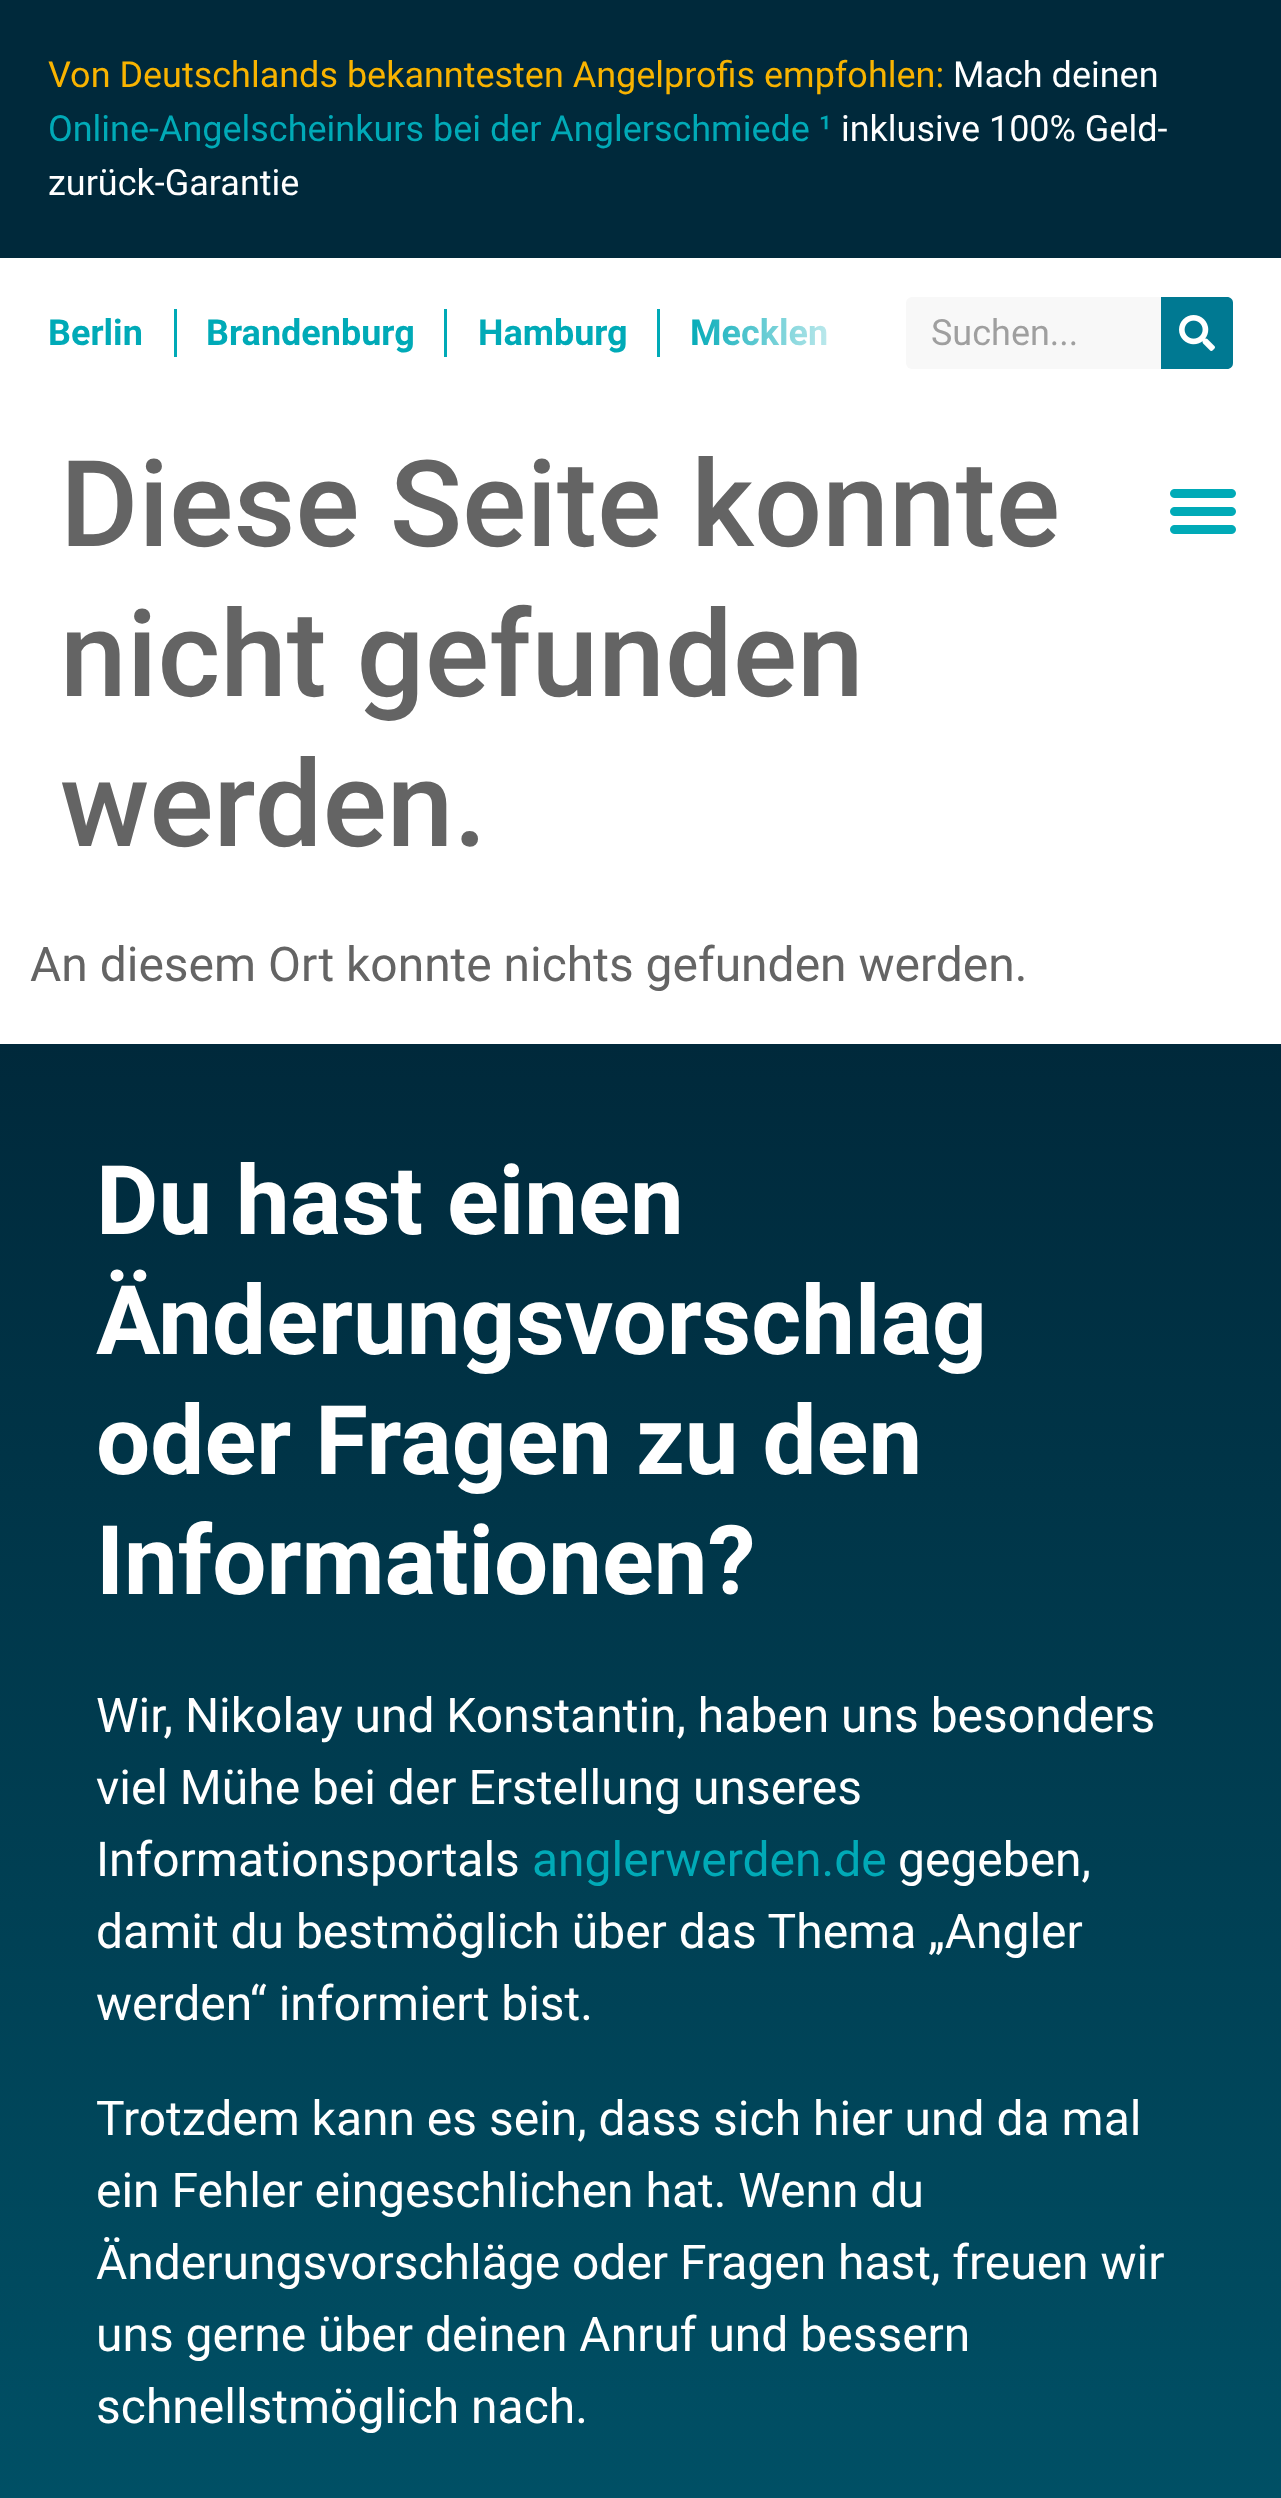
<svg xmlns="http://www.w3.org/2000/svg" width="1281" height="2498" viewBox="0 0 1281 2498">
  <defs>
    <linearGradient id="g1" gradientUnits="userSpaceOnUse" x1="687" y1="333" x2="879" y2="333"><stop offset="0" stop-color="#ffffff" stop-opacity="0"/><stop offset="1" stop-color="#ffffff"/></linearGradient>
    <linearGradient id="g2" gradientUnits="userSpaceOnUse" x1="640" y1="1044" x2="641" y2="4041"><stop offset="0" stop-color="#00293b"/><stop offset="1" stop-color="#007992"/></linearGradient>
  </defs>
  <rect width="100%" height="100%" fill="#ffffff"/>
  <rect x="0" y="0" width="1281" height="258" fill="#00293b"/>
  <text x="48" y="87" font-family="Roboto" font-size="36" fill="#f8b300">Von Deutschlands bekanntesten Angelprofis empfohlen:</text>
  <text x="953" y="87" font-family="Roboto" font-size="36" fill="#ffffff">Mach deinen</text>
  <text x="48" y="141" font-family="Roboto" font-size="36" fill="#00aab7">Online-Angelscheinkurs bei der Anglerschmiede ¹</text>
  <text x="841" y="141" font-family="Roboto" font-size="36" fill="#ffffff">inklusive 100% Geld-</text>
  <text x="48" y="195" font-family="Roboto" font-size="36" fill="#ffffff">zurück-Garantie</text>
  <text x="48" y="345" font-family="Roboto" font-size="36" font-weight="bold" fill="#00aab7">Berlin</text>
  <rect x="174" y="309" width="3" height="48" fill="#00aab7"/>
  <text x="206" y="345" font-family="Roboto" font-size="36" font-weight="bold" fill="#00aab7">Brandenburg</text>
  <rect x="444" y="309" width="3" height="48" fill="#00aab7"/>
  <text x="478" y="345" font-family="Roboto" font-size="36" font-weight="bold" fill="#00aab7">Hamburg</text>
  <rect x="657" y="309" width="3" height="48" fill="#00aab7"/>
  <text x="690" y="345" font-family="Roboto" font-size="36" font-weight="bold" fill="#00aab7">Mecklen</text>
  <rect x="692" y="318" width="135" height="28" fill="url(#g1)"/>
  <rect x="906" y="297" width="327" height="72" rx="6" fill="#f8f8f8"/>
  <text x="931" y="345" font-family="Roboto" font-size="36" fill="#9f9f9f">Suchen...</text>
  <path d="M1161 297H1227C1230.5 297 1233 299.5 1233 303V363C1233 366.5 1230.5 369 1227 369H1161Z" fill="#007992"/>
  <image x="1179" y="315" width="36" height="36" href="img1.png"/>
  <image x="1170" y="489" width="66" height="45" href="img2.png"/>
  <text x="60" y="546" font-family="Roboto" font-size="120" font-weight="500" fill="#646464">Diese Seite konnte</text>
  <text x="60" y="696" font-family="Roboto" font-size="120" font-weight="500" fill="#646464">nicht gefunden</text>
  <text x="60" y="846" font-family="Roboto" font-size="120" font-weight="500" fill="#646464">werden.</text>
  <text x="30" y="981" font-family="Roboto" font-size="48" fill="#646464">An diesem Ort konnte nichts gefunden werden.</text>
  <rect x="0" y="1044" width="1281" height="1454" fill="url(#g2)"/>
  <text x="96" y="1234" font-family="Roboto" font-size="96" font-weight="bold" fill="#ffffff">Du hast einen</text>
  <text x="96" y="1354" font-family="Roboto" font-size="96" font-weight="bold" fill="#ffffff">Änderungsvorschlag</text>
  <text x="96" y="1474" font-family="Roboto" font-size="96" font-weight="bold" fill="#ffffff">oder Fragen zu den</text>
  <text x="96" y="1594" font-family="Roboto" font-size="96" font-weight="bold" fill="#ffffff">Informationen?</text>
  <text x="96" y="1732" font-family="Roboto" font-size="48" fill="#ffffff">Wir, Nikolay und Konstantin, haben uns besonders</text>
  <text x="96" y="1804" font-family="Roboto" font-size="48" fill="#ffffff">viel Mühe bei der Erstellung unseres</text>
  <text x="96" y="1876" font-family="Roboto" font-size="48" fill="#ffffff">Informationsportals</text>
  <text x="532" y="1876" font-family="Roboto" font-size="48" fill="#00aab7">anglerwerden.de</text>
  <text x="898" y="1876" font-family="Roboto" font-size="48" fill="#ffffff">gegeben,</text>
  <text x="96" y="1948" font-family="Roboto" font-size="48" fill="#ffffff">damit du bestmöglich über das Thema „Angler</text>
  <text x="96" y="2020" font-family="Roboto" font-size="48" fill="#ffffff">werden“ informiert bist.</text>
  <text x="96" y="2135" font-family="Roboto" font-size="48" fill="#ffffff">Trotzdem kann es sein, dass sich hier und da mal</text>
  <text x="96" y="2207" font-family="Roboto" font-size="48" fill="#ffffff">ein Fehler eingeschlichen hat. Wenn du</text>
  <text x="96" y="2279" font-family="Roboto" font-size="48" fill="#ffffff">Änderungsvorschläge oder Fragen hast, freuen wir</text>
  <text x="96" y="2351" font-family="Roboto" font-size="48" fill="#ffffff">uns gerne über deinen Anruf und bessern</text>
  <text x="96" y="2423" font-family="Roboto" font-size="48" fill="#ffffff">schnellstmöglich nach.</text>
</svg>
